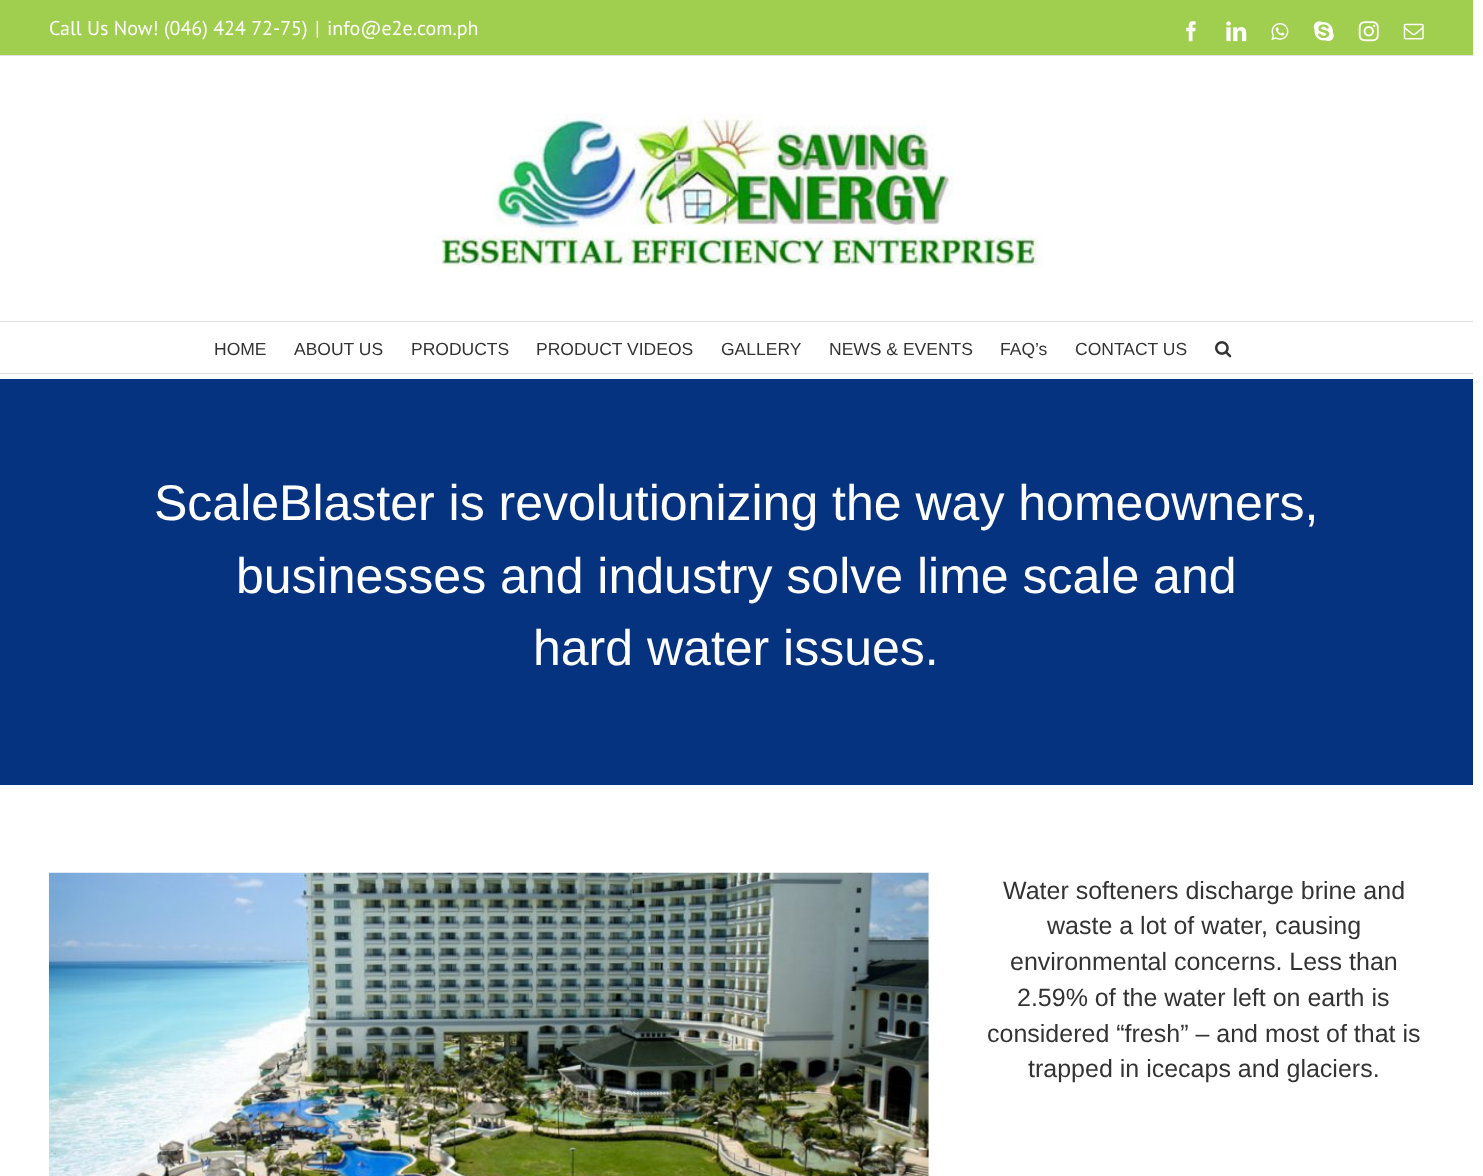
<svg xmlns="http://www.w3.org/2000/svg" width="1483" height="1176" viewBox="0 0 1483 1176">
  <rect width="100%" height="100%" fill="#ffffff"/>
  <rect x="0" y="0" width="1473" height="55" fill="#a0ce4e"/>
  <rect x="0" y="55" width="1473" height="1" fill="#e1e1e1"/>
  <text x="49" y="35" font-family="PT Sans" font-size="20" fill="#ffffff">Call Us Now! (046) 424 72-75)</text>
  <text x="315" y="35" font-family="PT Sans" font-size="20" fill="#ffffff">|</text>
  <text x="327" y="35" font-family="PT Sans" font-size="20" fill="#ffffff">info@e2e.com.ph</text>
  <image x="1186" y="21" width="10" height="21" href="img1.png"/>
  <image x="1226" y="21" width="21" height="21" href="img2.png"/>
  <image x="1271" y="23" width="18" height="18" href="img3.png"/>
  <image x="1313" y="21" width="21" height="21" href="img4.png"/>
  <image x="1358" y="21" width="21" height="21" href="img5.png"/>
  <image x="1403" y="23" width="21" height="17" href="img6.png"/>
  <rect x="0" y="321" width="1473" height="1" fill="#e1e1e1"/>
  <image x="434" y="113" width="609" height="155" href="img7.png"/>
  <rect x="0" y="373" width="1473" height="1" fill="#e1e1e1"/>
  <text x="214" y="355" font-family="Liberation Sans" font-size="17.5" fill="#333333">HOME</text>
  <text x="294" y="355" font-family="Liberation Sans" font-size="17.5" fill="#333333">ABOUT US</text>
  <text x="411" y="355" font-family="Liberation Sans" font-size="17.5" fill="#333333">PRODUCTS</text>
  <text x="536" y="355" font-family="Liberation Sans" font-size="17.5" fill="#333333">PRODUCT VIDEOS</text>
  <text x="721" y="355" font-family="Liberation Sans" font-size="17.5" fill="#333333">GALLERY</text>
  <text x="829" y="355" font-family="Liberation Sans" font-size="17.5" fill="#333333">NEWS &amp; EVENTS</text>
  <text x="1000" y="355" font-family="Liberation Sans" font-size="17.5" fill="#333333">FAQ’s</text>
  <text x="1075" y="355" font-family="Liberation Sans" font-size="17.5" fill="#333333">CONTACT US</text>
  <image x="1215" y="341" width="17" height="17" href="img8.png"/>
  <rect x="0" y="379" width="1473" height="406" fill="#063380"/>
  <text x="154" y="520" font-family="Liberation Sans" font-size="50" fill="#ffffff">ScaleBlaster is revolutionizing the way homeowners,</text>
  <text x="236" y="593" font-family="Liberation Sans" font-size="50" fill="#ffffff">businesses and industry solve lime scale and</text>
  <text x="533" y="665" font-family="Liberation Sans" font-size="50" fill="#ffffff">hard water issues.</text>
  <image x="48" y="872" width="881" height="304" href="img9.png"/>
  <text x="1003" y="899" font-family="Liberation Sans" font-size="25" fill="#333333">Water softeners discharge brine and</text>
  <text x="1047" y="934" font-family="Liberation Sans" font-size="25" fill="#333333">waste a lot of water, causing</text>
  <text x="1010" y="970" font-family="Liberation Sans" font-size="25" fill="#333333">environmental concerns. Less than</text>
  <text x="1017" y="1006" font-family="Liberation Sans" font-size="25" fill="#333333">2.59% of the water left on earth is</text>
  <text x="987" y="1042" font-family="Liberation Sans" font-size="25" fill="#333333">considered “fresh” – and most of that is</text>
  <text x="1028" y="1077" font-family="Liberation Sans" font-size="25" fill="#333333">trapped in icecaps and glaciers.</text>
</svg>
